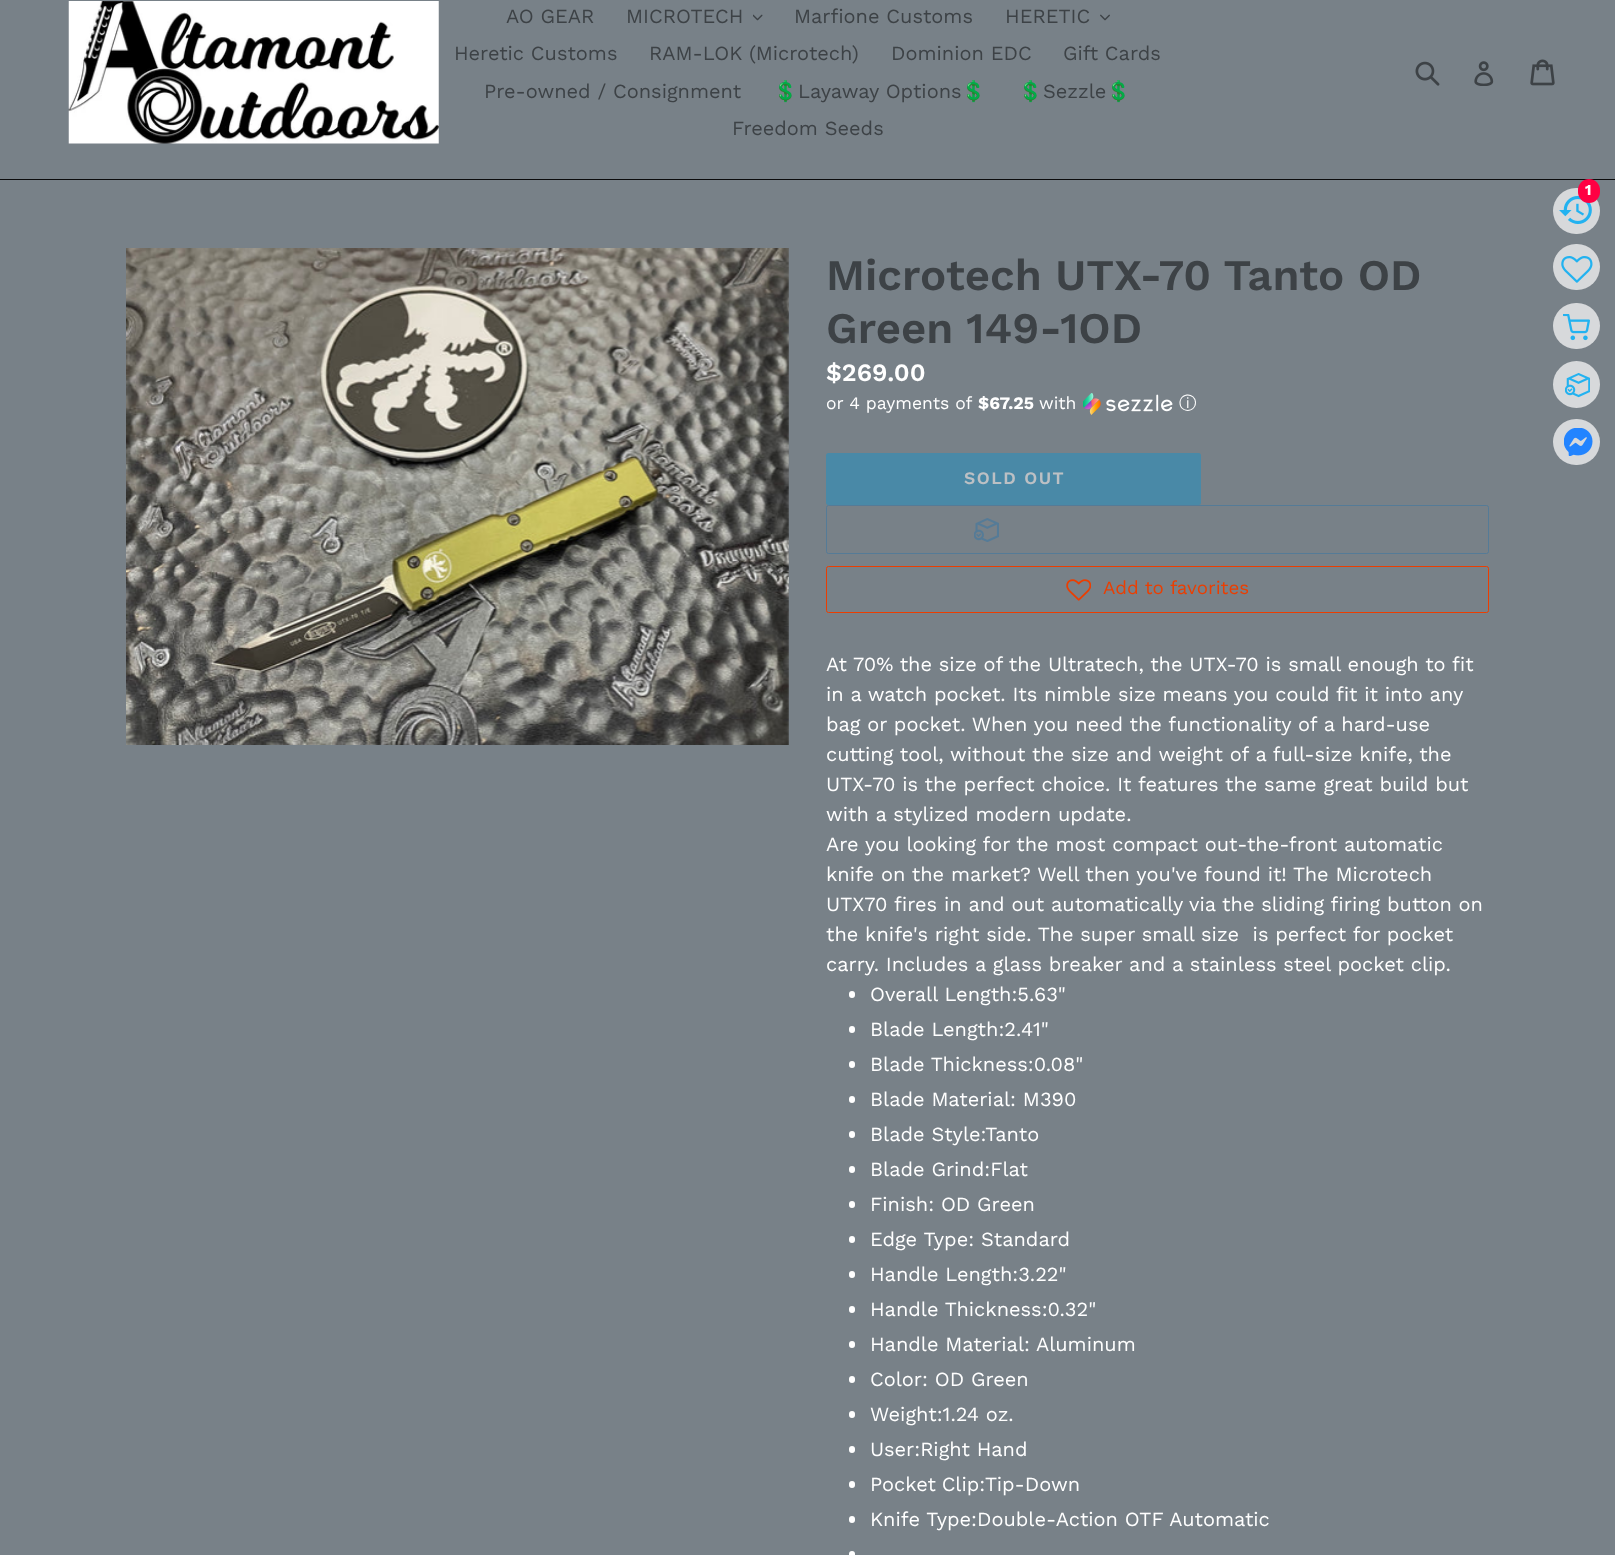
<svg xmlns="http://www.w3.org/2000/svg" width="1615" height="1555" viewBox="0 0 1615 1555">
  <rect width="100%" height="100%" fill="#788188"/>
  <rect x="0" y="179" width="1615" height="1" fill="#0c0c0d"/>
  <image x="68" y="1" width="371" height="143" href="img1.png"/>
  <text x="506" y="23" font-family="Work Sans" font-size="20" fill="#3d4246">AO GEAR</text>
  <text x="626" y="23" font-family="Work Sans" font-size="20" fill="#3d4246">MICROTECH</text>
  <image x="753" y="14" width="10" height="7" href="img2.png"/>
  <text x="794" y="23" font-family="Work Sans" font-size="20" fill="#3d4246">Marfione Customs</text>
  <text x="1005" y="23" font-family="Work Sans" font-size="20" fill="#3d4246">HERETIC</text>
  <image x="1100" y="14" width="10" height="7" href="img3.png"/>
  <text x="454" y="60" font-family="Work Sans" font-size="20" fill="#3d4246">Heretic Customs</text>
  <text x="649" y="60" font-family="Work Sans" font-size="20" fill="#3d4246">RAM-LOK (Microtech)</text>
  <text x="891" y="60" font-family="Work Sans" font-size="20" fill="#3d4246">Dominion EDC</text>
  <text x="1063" y="60" font-family="Work Sans" font-size="20" fill="#3d4246">Gift Cards</text>
  <text x="484" y="98" font-family="Work Sans" font-size="20" fill="#3d4246">Pre-owned / Consignment</text>
  <text x="773" y="98" font-family="Noto Color Emoji" font-size="20" fill="#3d4246">💲</text>
  <text x="798" y="98" font-family="Work Sans" font-size="20" fill="#3d4246">Layaway Options</text>
  <text x="961" y="98" font-family="Noto Color Emoji" font-size="20" fill="#3d4246">💲</text>
  <text x="1018" y="98" font-family="Noto Color Emoji" font-size="20" fill="#3d4246">💲</text>
  <text x="1043" y="98" font-family="Work Sans" font-size="20" fill="#3d4246">Sezzle</text>
  <text x="1106" y="98" font-family="Noto Color Emoji" font-size="20" fill="#3d4246">💲</text>
  <text x="732" y="135" font-family="Work Sans" font-size="20" fill="#3d4246">Freedom Seeds</text>
  <image x="1415" y="61" width="25" height="25" href="img4.png"/>
  <image x="1474" y="61" width="20" height="25" href="img5.png"/>
  <image x="1530" y="59" width="25" height="27" href="img6.png"/>
  <rect x="1553" y="188" width="47" height="46" rx="23" fill="#d7d9db"/>
  <image x="1559" y="195" width="33" height="30" href="img7.png"/>
  <rect x="1578" y="179" width="22" height="24" rx="11" fill="#ff0043"/>
  <text x="1585" y="195" font-family="Work Sans" font-size="15" font-weight="bold" fill="#ffffff">1</text>
  <rect x="1553" y="244" width="47" height="46" rx="23" fill="#d7d9db"/>
  <image x="1561" y="256" width="32" height="27" href="img8.png"/>
  <rect x="1553" y="303" width="47" height="46" rx="23" fill="#d7d9db"/>
  <image x="1563" y="314" width="27" height="27" href="img9.png"/>
  <circle cx="1576.5" cy="384.5" r="23.5" fill="#d7d9db"/>
  <image x="1565" y="373" width="25" height="25" href="img10.png"/>
  <rect x="1553" y="419" width="47" height="46" rx="23" fill="#d7d9db"/>
  <image x="1564" y="428" width="29" height="28" href="img11.png"/>
  <image x="126" y="248" width="663" height="497" href="img12.png"/>
  <text x="826" y="290" font-family="Work Sans" font-size="43.75" font-weight="600" fill="#3d4246">Microtech UTX-70 Tanto OD</text>
  <text x="826" y="343" font-family="Work Sans" font-size="43.75" font-weight="600" fill="#3d4246">Green 149-1OD</text>
  <text x="826" y="381" font-family="Work Sans" font-size="25" font-weight="600" fill="#ffffff">$269.00</text>
  <text x="826" y="409" font-family="Work Sans" font-size="17.5" fill="#ffffff">or 4 payments of</text>
  <text x="978" y="409" font-family="Work Sans" font-size="17.5" font-weight="bold" fill="#ffffff">$67.25</text>
  <text x="1039" y="409" font-family="Work Sans" font-size="17.5" fill="#ffffff">with</text>
  <image x="1083" y="393" width="90" height="22" href="img13.png"/>
  <text x="1179" y="409" font-family="WenQuanYi Zen Hei" font-size="17.5" font-weight="500" fill="#ffffff">ⓘ</text>
  <rect x="826" y="453" width="375" height="52" rx="2.5" fill="#4989a7"/>
  <text x="964" y="484" font-family="Work Sans" font-size="17.5" font-weight="600" letter-spacing="1.5" fill="#bcc0c4">SOLD OUT</text>
  <rect x="826.5" y="505.5" width="662" height="48" rx="2" fill="none" stroke="#557b97"/>
  <image x="974" y="518" width="25" height="24" href="img14.png"/>
  <rect x="826.5" y="566.5" width="662" height="46" rx="2" fill="none" stroke="#eb3e01"/>
  <image x="1066" y="579" width="25" height="22" href="img15.png"/>
  <text x="1103" y="594" font-family="Work Sans" font-size="18.75" fill="#eb3e01">Add to favorites</text>
  <text x="826" y="671" font-family="Work Sans" font-size="20" fill="#ffffff">At 70% the size of the Ultratech, the UTX-70 is small enough to fit</text>
  <text x="826" y="701" font-family="Work Sans" font-size="20" fill="#ffffff">in a watch pocket. Its nimble size means you could fit it into any</text>
  <text x="826" y="731" font-family="Work Sans" font-size="20" fill="#ffffff">bag or pocket. When you need the functionality of a hard-use</text>
  <text x="826" y="761" font-family="Work Sans" font-size="20" fill="#ffffff">cutting tool, without the size and weight of a full-size knife, the</text>
  <text x="826" y="791" font-family="Work Sans" font-size="20" fill="#ffffff">UTX-70 is the perfect choice. It features the same great build but</text>
  <text x="826" y="821" font-family="Work Sans" font-size="20" fill="#ffffff">with a stylized modern update.</text>
  <text x="826" y="851" font-family="Work Sans" font-size="20" fill="#ffffff">Are you looking for the most compact out-the-front automatic</text>
  <text x="826" y="881" font-family="Work Sans" font-size="20" fill="#ffffff">knife on the market? Well then you've found it! The Microtech</text>
  <text x="826" y="911" font-family="Work Sans" font-size="20" fill="#ffffff">UTX70 fires in and out automatically via the sliding firing button on</text>
  <text x="826" y="941" font-family="Work Sans" font-size="20" fill="#ffffff" xml:space="preserve">the knife's right side. The super small size  is perfect for pocket</text>
  <text x="826" y="971" font-family="Work Sans" font-size="20" fill="#ffffff">carry. Includes a glass breaker and a stainless steel pocket clip.</text>
  <rect x="849" y="991" width="6" height="7" rx="3" fill="#ffffff"/>
  <text x="870" y="1001" font-family="Work Sans" font-size="20" fill="#ffffff">Overall Length:5.63"</text>
  <rect x="849" y="1026" width="6" height="7" rx="3" fill="#ffffff"/>
  <text x="870" y="1036" font-family="Work Sans" font-size="20" fill="#ffffff">Blade Length:2.41"</text>
  <rect x="849" y="1061" width="6" height="7" rx="3" fill="#ffffff"/>
  <text x="870" y="1071" font-family="Work Sans" font-size="20" fill="#ffffff">Blade Thickness:0.08"</text>
  <rect x="849" y="1096" width="6" height="7" rx="3" fill="#ffffff"/>
  <text x="870" y="1106" font-family="Work Sans" font-size="20" fill="#ffffff">Blade Material: M390</text>
  <rect x="849" y="1131" width="6" height="7" rx="3" fill="#ffffff"/>
  <text x="870" y="1141" font-family="Work Sans" font-size="20" fill="#ffffff">Blade Style:Tanto</text>
  <rect x="849" y="1166" width="6" height="7" rx="3" fill="#ffffff"/>
  <text x="870" y="1176" font-family="Work Sans" font-size="20" fill="#ffffff">Blade Grind:Flat</text>
  <rect x="849" y="1201" width="6" height="7" rx="3" fill="#ffffff"/>
  <text x="870" y="1211" font-family="Work Sans" font-size="20" fill="#ffffff">Finish: OD Green</text>
  <rect x="849" y="1236" width="6" height="7" rx="3" fill="#ffffff"/>
  <text x="870" y="1246" font-family="Work Sans" font-size="20" fill="#ffffff">Edge Type: Standard</text>
  <rect x="849" y="1271" width="6" height="7" rx="3" fill="#ffffff"/>
  <text x="870" y="1281" font-family="Work Sans" font-size="20" fill="#ffffff">Handle Length:3.22"</text>
  <rect x="849" y="1306" width="6" height="7" rx="3" fill="#ffffff"/>
  <text x="870" y="1316" font-family="Work Sans" font-size="20" fill="#ffffff">Handle Thickness:0.32"</text>
  <rect x="849" y="1341" width="6" height="7" rx="3" fill="#ffffff"/>
  <text x="870" y="1351" font-family="Work Sans" font-size="20" fill="#ffffff">Handle Material: Aluminum</text>
  <rect x="849" y="1376" width="6" height="7" rx="3" fill="#ffffff"/>
  <text x="870" y="1386" font-family="Work Sans" font-size="20" fill="#ffffff">Color: OD Green</text>
  <rect x="849" y="1411" width="6" height="7" rx="3" fill="#ffffff"/>
  <text x="870" y="1421" font-family="Work Sans" font-size="20" fill="#ffffff">Weight:1.24 oz.</text>
  <rect x="849" y="1446" width="6" height="7" rx="3" fill="#ffffff"/>
  <text x="870" y="1456" font-family="Work Sans" font-size="20" fill="#ffffff">User:Right Hand</text>
  <rect x="849" y="1481" width="6" height="7" rx="3" fill="#ffffff"/>
  <text x="870" y="1491" word-spacing="-1" font-family="Work Sans" font-size="20" fill="#ffffff">Pocket Clip:</text>
  <text x="985" y="1491" font-family="Work Sans" font-size="20" fill="#ffffff">Tip-Down</text>
  <rect x="849" y="1516" width="6" height="7" rx="3" fill="#ffffff"/>
  <text x="870" y="1526" font-family="Work Sans" font-size="20" fill="#ffffff">Knife Type:Double-Action OTF Automatic</text>
  <rect x="849" y="1551" width="6" height="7" rx="3" fill="#ffffff"/>
</svg>
